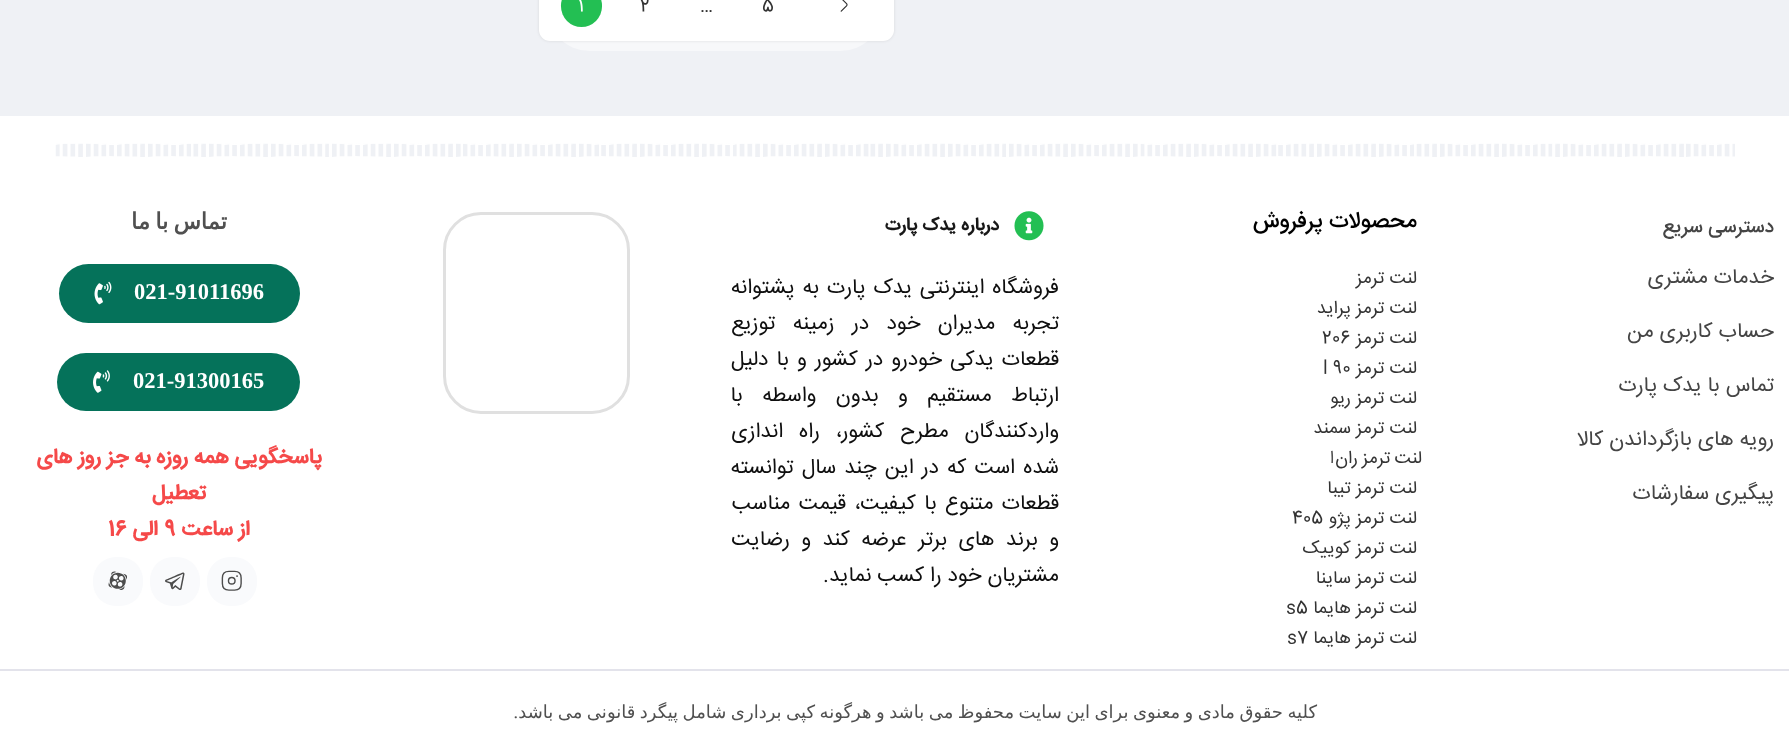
<svg xmlns="http://www.w3.org/2000/svg" width="1789" height="751" viewBox="0 0 1789 751">
  <defs>
    <filter id="blur1" x="-50%" y="-200%" width="200%" height="500%"><feGaussianBlur stdDeviation="1.5"/></filter>
  </defs>
  <rect width="100%" height="100%" fill="#eff1f5"/>
  <rect x="546" y="-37" width="338" height="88" rx="44" fill="#f7f8fa"/>
  <rect x="539" y="-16" width="355" height="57" rx="11" fill="#000000" fill-opacity="0.1" filter="url(#blur1)"/>
  <rect x="539" y="-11" width="355" height="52" rx="11" fill="#ffffff"/>
  <image x="840" y="0" width="8" height="12" href="img1.png"/>
  <text x="762" y="11" font-family="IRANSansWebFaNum" font-size="18" fill="#333333">5</text>
  <text x="700" y="11" font-family="IRANSansWebFaNum" font-size="18" fill="#333333">…</text>
  <text x="640" y="11" font-family="IRANSansWebFaNum" font-size="18" fill="#333333">2</text>
  <rect x="561" y="-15" width="41" height="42" rx="20.5" fill="#23bf53"/>
  <text x="578" y="11" font-family="IRANSansWebFaNum" font-size="18" fill="#ffffff">1</text>
  <rect x="0" y="116" width="1789" height="553" fill="#ffffff"/>
  <image x="55" y="143" width="1680" height="14" href="img2.png"/>
  <text x="1774" y="232" font-family="IRANSansWebFaNum" font-size="19.5" font-weight="500" direction="rtl" fill="#454545">دسترسی سریع</text>
  <text x="1774" y="283" font-family="IRANSansWebFaNum" font-size="21" direction="rtl" fill="#454545">خدمات مشتری</text>
  <text x="1774" y="337" font-family="IRANSansWebFaNum" font-size="21" direction="rtl" fill="#454545">حساب کاربری من</text>
  <text x="1774" y="391" font-family="IRANSansWebFaNum" font-size="21" direction="rtl" fill="#454545">تماس با یدک پارت</text>
  <text x="1774" y="445" font-family="IRANSansWebFaNum" font-size="21" direction="rtl" fill="#454545">رویه های بازگرداندن کالا</text>
  <text x="1774" y="499" font-family="IRANSansWebFaNum" font-size="21" direction="rtl" fill="#454545">پیگیری سفارشات</text>
  <text x="1417" y="227" font-family="IRANSansWebFaNum" font-size="22.5" font-weight="500" direction="rtl" fill="#000000">محصولات پرفروش</text>
  <text x="1417" y="283" font-family="IRANSansWebFaNum" font-size="18" direction="rtl" fill="#333333">لنت ترمز</text>
  <text x="1417" y="313" font-family="IRANSansWebFaNum" font-size="18" direction="rtl" fill="#333333">لنت ترمز پراید</text>
  <text x="1417" y="343" font-family="IRANSansWebFaNum" font-size="18" direction="rtl" fill="#333333">لنت ترمز</text>
  <text x="1322" y="343" font-family="IRANSansWebFaNum" font-size="18" fill="#333333">206</text>
  <text x="1417" y="373" font-family="IRANSansWebFaNum" font-size="18" direction="rtl" fill="#333333">لنت ترمز</text>
  <text x="1323" y="373" font-family="IRANSansWebFaNum" font-size="18" fill="#333333">l 90</text>
  <text x="1417" y="403" font-family="IRANSansWebFaNum" font-size="18" direction="rtl" fill="#333333">لنت ترمز ریو</text>
  <text x="1417" y="433" font-family="IRANSansWebFaNum" font-size="18" direction="rtl" fill="#333333">لنت ترمز سمند</text>
  <text x="1422" y="463" word-spacing="-1" font-family="IRANSansWebFaNum" font-size="18" direction="rtl" fill="#333333">لنت ترمز ران</text>
  <text x="1334" y="463" font-family="IRANSansWebFaNum" font-size="18" direction="rtl" fill="#505050">ا</text>
  <text x="1417" y="493" font-family="IRANSansWebFaNum" font-size="18" direction="rtl" fill="#333333">لنت ترمز تیبا</text>
  <text x="1417" y="523" font-family="IRANSansWebFaNum" font-size="18" direction="rtl" fill="#333333">لنت ترمز پژو</text>
  <text x="1292" y="523" font-family="IRANSansWebFaNum" font-size="18" fill="#333333">405</text>
  <text x="1417" y="553" font-family="IRANSansWebFaNum" font-size="18" direction="rtl" fill="#333333">لنت ترمز کوییک</text>
  <text x="1417" y="583" font-family="IRANSansWebFaNum" font-size="18" direction="rtl" fill="#333333">لنت ترمز ساینا</text>
  <text x="1417" y="613" font-family="IRANSansWebFaNum" font-size="18" direction="rtl" fill="#333333">لنت ترمز هایما</text>
  <text x="1286" y="613" font-family="IRANSansWebFaNum" font-size="18" fill="#333333">s5</text>
  <text x="1417" y="643" font-family="IRANSansWebFaNum" font-size="18" direction="rtl" fill="#333333">لنت ترمز هایما</text>
  <text x="1287" y="643" font-family="IRANSansWebFaNum" font-size="18" fill="#333333">s7</text>
  <image x="1014" y="211" width="30" height="30" href="img3.png"/>
  <text x="999" y="230" font-family="IRANSansWebFaNum" font-size="18" font-weight="bold" direction="rtl" fill="#181818">درباره یدک پارت</text>
  <text x="1059" y="293" word-spacing="2" font-family="IRANSansWebFaNum" font-size="21" direction="rtl" fill="#0f0f0f">فروشگاه اینترنتی یدک پارت به پشتوانه</text>
  <text x="1059" y="329" word-spacing="11.5" font-family="IRANSansWebFaNum" font-size="21" direction="rtl" fill="#0f0f0f">تجربه مدیران خود در زمینه توزیع</text>
  <text x="1059" y="365" word-spacing="2.25" font-family="IRANSansWebFaNum" font-size="21" direction="rtl" fill="#0f0f0f">قطعات یدکی خودرو در کشور و با دلیل</text>
  <text x="1059" y="401" word-spacing="13.5" font-family="IRANSansWebFaNum" font-size="21" direction="rtl" fill="#0f0f0f">ارتباط مستقیم و بدون واسطه با</text>
  <text x="1059" y="437" word-spacing="10" font-family="IRANSansWebFaNum" font-size="21" direction="rtl" fill="#0f0f0f">واردکنندگان مطرح کشور، راه اندازی</text>
  <text x="1059" y="473" word-spacing="2.25" font-family="IRANSansWebFaNum" font-size="21" direction="rtl" fill="#0f0f0f">شده است که در این چند سال توانسته</text>
  <text x="1059" y="509" word-spacing="2.5" font-family="IRANSansWebFaNum" font-size="21" direction="rtl" fill="#0f0f0f">قطعات متنوع با کیفیت، قیمت مناسب</text>
  <text x="1059" y="545" word-spacing="5.5" font-family="IRANSansWebFaNum" font-size="21" direction="rtl" fill="#0f0f0f">و برند های برتر عرضه کند و رضایت</text>
  <text x="1059" y="581" font-family="IRANSansWebFaNum" font-size="21" direction="rtl" fill="#0f0f0f">مشتریان خود را کسب نماید.</text>
  <rect x="444.5" y="213.5" width="184" height="199" rx="36.5" fill="none" stroke="#e0e0e0" stroke-width="3"/>
  <text x="227" y="229" word-spacing="-2" font-family="DejaVu Sans" font-size="22.5" font-weight="bold" direction="rtl" fill="#505050">تماس با ما</text>
  <rect x="59" y="264" width="241" height="59" rx="29.5" fill="#05725a"/>
  <text x="134" y="299" font-family="Liberation Serif" font-size="22.5" font-weight="bold" fill="#ffffff">021-91011696</text>
  <image x="94" y="281" width="18" height="24" href="img4.png"/>
  <rect x="57" y="353" width="243" height="58" rx="29" fill="#05725a"/>
  <text x="133" y="388" font-family="Liberation Serif" font-size="22.5" font-weight="bold" fill="#ffffff">021-91300165</text>
  <image x="93" y="370" width="17" height="23" href="img5.png"/>
  <text x="322" y="463" font-family="IRANSansWebFaNum" font-size="21" font-weight="bold" direction="rtl" fill="#f54949">پاسخگویی همه روزه به جز روز های</text>
  <text x="206" y="499" font-family="IRANSansWebFaNum" font-size="21" font-weight="bold" direction="rtl" fill="#f54949">تعطیل</text>
  <text x="250" y="535" font-family="IRANSansWebFaNum" font-size="21" font-weight="bold" direction="rtl" fill="#f54949">از ساعت</text>
  <text x="164" y="535" font-family="IRANSansWebFaNum" font-size="21" font-weight="bold" fill="#f54949">9</text>
  <text x="158" y="535" font-family="IRANSansWebFaNum" font-size="21" font-weight="bold" direction="rtl" fill="#f54949">الی</text>
  <text x="108" y="535" font-family="IRANSansWebFaNum" font-size="21" font-weight="bold" fill="#f54949">16</text>
  <rect x="207" y="557" width="50" height="49" rx="23" fill="#f9fafc"/>
  <image x="221" y="570" width="21" height="21" href="img6.png"/>
  <rect x="150" y="557" width="50" height="49" rx="23" fill="#f9fafc"/>
  <image x="165" y="572" width="20" height="18" href="img7.png"/>
  <rect x="93" y="557" width="50" height="49" rx="23" fill="#f9fafc"/>
  <image x="108" y="571" width="19" height="19" href="img8.png"/>
  <rect x="0" y="671" width="1789" height="80" fill="#ffffff"/>
  <rect x="0" y="669" width="1789" height="2" fill="#e3e3eb"/>
  <text x="1317" y="718" word-spacing="-1.25" font-family="DejaVu Sans" font-size="18" direction="rtl" fill="#505050">کلیه حقوق مادی و معنوی برای این سایت محفوظ می باشد و هرگونه کپی برداری شامل پیگرد قانونی می باشد</text>
  <text x="518" y="718" font-family="Liberation Serif" font-size="18" direction="rtl" fill="#505050">.</text>
</svg>
